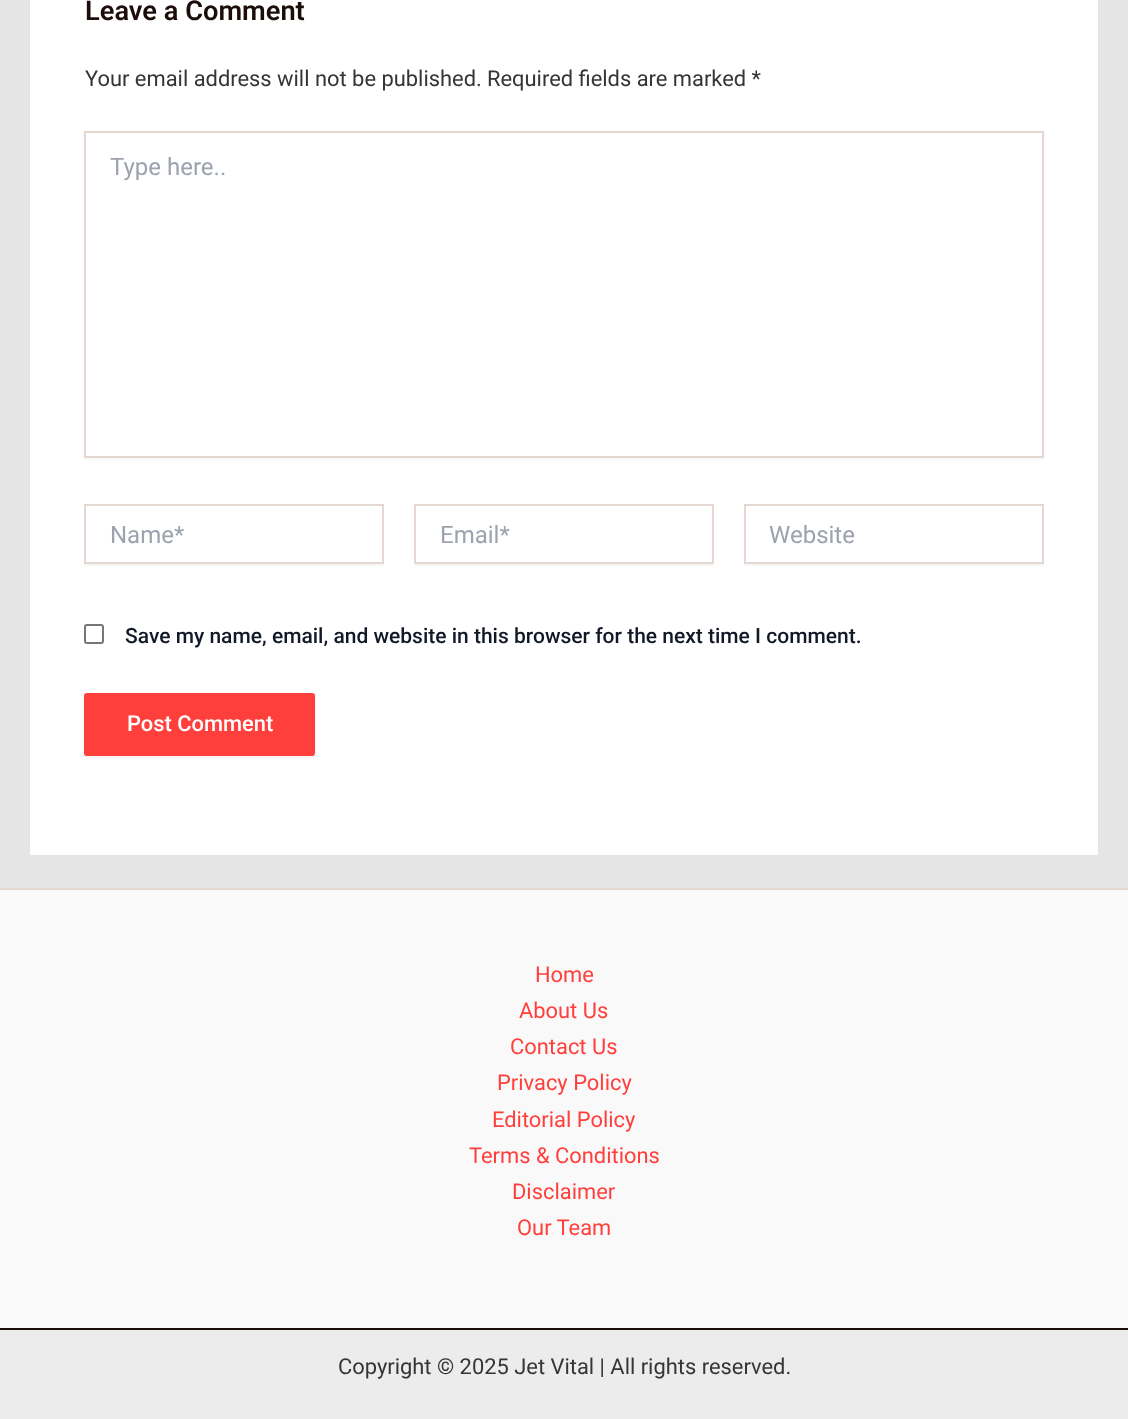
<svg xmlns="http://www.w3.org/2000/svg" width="1128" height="1419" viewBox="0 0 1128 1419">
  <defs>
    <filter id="blur1" x="-50%" y="-200%" width="200%" height="500%"><feGaussianBlur stdDeviation="1.5"/></filter>
    <clipPath id="clip1"><rect x="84" y="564" width="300" height="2"/></clipPath>
    <clipPath id="clip2"><rect x="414" y="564" width="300" height="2"/></clipPath>
    <clipPath id="clip3"><rect x="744" y="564" width="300" height="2"/></clipPath>
  </defs>
  <rect width="100%" height="100%" fill="#e5e5e5"/>
  <rect x="30" y="0" width="1068" height="855" fill="#ffffff"/>
  <text x="85" y="20" font-family="Roboto" font-size="27.25" font-weight="600" fill="#1c0d0a">Leave a Comment</text>
  <text x="85" y="86" font-family="Roboto" font-size="21.9" fill="#353535">Your email address will not be published.</text>
  <text x="487" y="86" font-family="Roboto" font-size="21.9" fill="#353535">Required fields are marked *</text>
  <rect x="84" y="132" width="960" height="327" fill="#000000" fill-opacity="0.05" filter="url(#blur1)"/>
  <rect x="85" y="132" width="958" height="325" fill="#ffffff" stroke="#e5d7d1" stroke-width="2"/>
  <text x="110" y="175" font-family="Roboto" font-size="24" fill="#9ca3af">Type here..</text>
  <g clip-path="url(#clip1)">
    <rect x="84" y="506" width="300" height="60" fill="#000000" fill-opacity="0.05" filter="url(#blur1)"/>
  </g>
  <rect x="85" y="505" width="298" height="58" fill="none" stroke="#e5d7d1" stroke-width="2"/>
  <text x="110" y="543" font-family="Roboto" font-size="24" fill="#9ca3af">Name*</text>
  <g clip-path="url(#clip2)">
    <rect x="414" y="506" width="300" height="60" fill="#000000" fill-opacity="0.05" filter="url(#blur1)"/>
  </g>
  <rect x="415" y="505" width="298" height="58" fill="none" stroke="#e5d7d1" stroke-width="2"/>
  <text x="440" y="543" font-family="Roboto" font-size="24" fill="#9ca3af">Email*</text>
  <g clip-path="url(#clip3)">
    <rect x="744" y="506" width="300" height="60" fill="#000000" fill-opacity="0.05" filter="url(#blur1)"/>
  </g>
  <rect x="745" y="505" width="298" height="58" fill="none" stroke="#e5d7d1" stroke-width="2"/>
  <text x="769" y="543" font-family="Roboto" font-size="24" fill="#9ca3af">Website</text>
  <rect x="85" y="625" width="18" height="18" rx="2" fill="none" stroke="#767676" stroke-width="2"/>
  <text x="125" y="643" font-family="Roboto" font-size="21" font-weight="500" fill="#111827">Save my name, email, and website in this browser for the next time I comment.</text>
  <rect x="84" y="695" width="231" height="63" rx="3" fill="#000000" fill-opacity="0.05" filter="url(#blur1)"/>
  <rect x="84" y="693" width="231" height="63" rx="3" fill="#ff3f3c"/>
  <text x="127" y="731" font-family="Roboto" font-size="21.9" font-weight="500" fill="#ffffff">Post Comment</text>
  <rect x="0" y="890" width="1128" height="438" fill="#f9f9f9"/>
  <rect x="0" y="888" width="1128" height="2" fill="#e5d7d1"/>
  <text x="535" y="982" font-family="Roboto" font-size="21.9" fill="#ff3f3c">Home</text>
  <text x="519" y="1018" font-family="Roboto" font-size="21.9" fill="#ff3f3c">About Us</text>
  <text x="510" y="1054" font-family="Roboto" font-size="21.9" fill="#ff3f3c">Contact Us</text>
  <text x="497" y="1090" font-family="Roboto" font-size="21.9" fill="#ff3f3c">Privacy Policy</text>
  <text x="492" y="1127" font-family="Roboto" font-size="21.9" fill="#ff3f3c">Editorial Policy</text>
  <text x="469" y="1163" font-family="Roboto" font-size="21.9" fill="#ff3f3c">Terms &amp; Conditions</text>
  <text x="512" y="1199" font-family="Roboto" font-size="21.9" fill="#ff3f3c">Disclaimer</text>
  <text x="517" y="1235" font-family="Roboto" font-size="21.9" fill="#ff3f3c">Our Team</text>
  <rect x="0" y="1330" width="1128" height="89" fill="#ececec"/>
  <rect x="0" y="1328" width="1128" height="2" fill="#1c0d0a"/>
  <text x="338" y="1374" font-family="Roboto" font-size="21.9" fill="#353535">Copyright © 2025 Jet Vital | All rights reserved.</text>
</svg>
